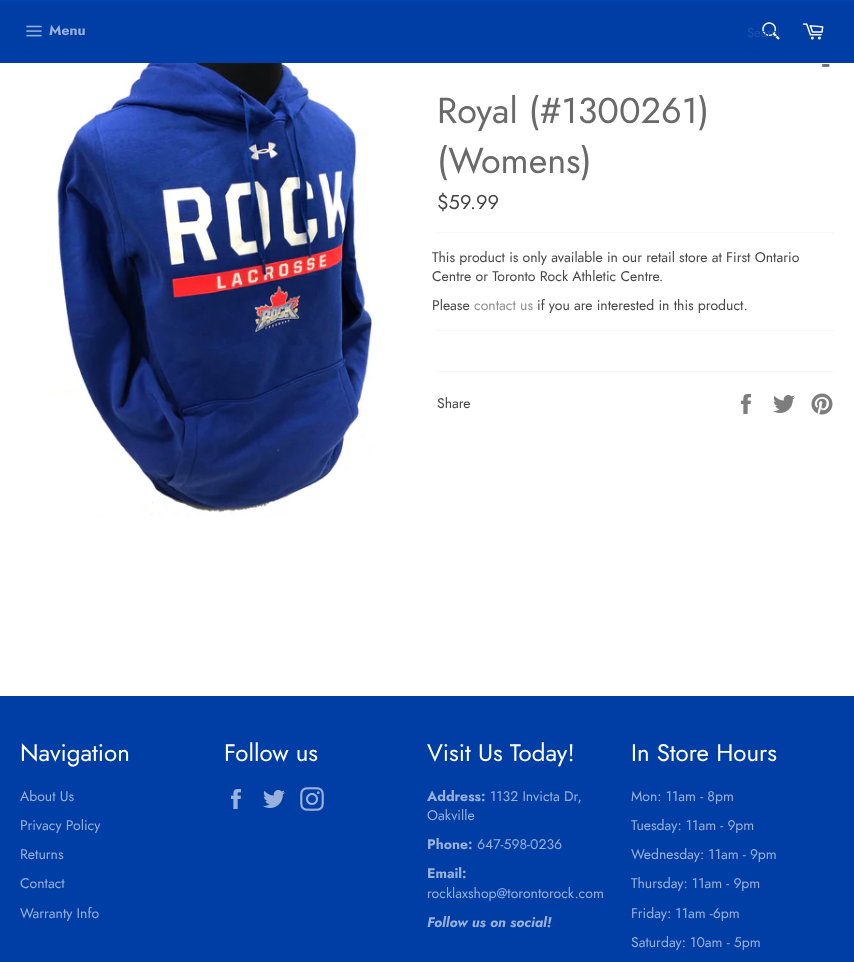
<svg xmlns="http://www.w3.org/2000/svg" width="854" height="962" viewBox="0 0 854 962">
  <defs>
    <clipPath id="clip1"><rect x="747" y="23" width="32" height="19"/></clipPath>
  </defs>
  <rect width="100%" height="100%" fill="#003da5"/>
  <rect x="0" y="0" width="854" height="1" fill="#0046bf"/>
  <image x="26" y="25" width="16" height="12" href="img1.png"/>
  <text x="49" y="35" font-family="Jost" font-size="14" font-weight="bold" fill="#99b1db">Menu</text>
  <image x="762" y="22" width="18" height="18" href="img2.png"/>
  <g clip-path="url(#clip1)">
    <text x="747" y="37" font-family="Jost" font-size="13" fill="#1e54b0">Search</text>
  </g>
  <image x="802" y="23" width="22" height="17" href="img3.png"/>
  <rect x="0" y="63" width="854" height="633" fill="#ffffff"/>
  <image x="50" y="63" width="322" height="454" href="img4.png"/>
  <text x="822" y="74" font-family="Jost" font-size="36" fill="#696969">-</text>
  <text x="437" y="123" font-family="Jost" font-size="36" fill="#696969">Royal (#1300261)</text>
  <text x="437" y="173" font-family="Jost" font-size="36" fill="#696969">(Womens)</text>
  <text x="437" y="209" font-family="Jost" font-size="20" fill="#454545">$59.99</text>
  <rect x="437" y="232" width="397" height="1" fill="#f7f7f7"/>
  <text x="432" y="262" font-family="Jost" font-size="14" fill="#454545">This product is only available in our retail store at First Ontario</text>
  <text x="432" y="281" font-family="Jost" font-size="14" fill="#454545">Centre or Toronto Rock Athletic Centre.</text>
  <text x="432" y="310" font-family="Jost" font-size="14" fill="#454545">Please</text>
  <text x="474" y="310" font-family="Jost" font-size="14" fill="#8f8f8f">contact us</text>
  <text x="537" y="310" font-family="Jost" font-size="14" fill="#454545">if you are interested in this product.</text>
  <rect x="437" y="330" width="397" height="1" fill="#f7f7f7"/>
  <rect x="437" y="371" width="397" height="1" fill="#f7f7f7"/>
  <text x="437" y="408" font-family="Jost" font-size="14" fill="#454545">Share</text>
  <image x="741" y="394" width="10" height="20" href="img5.png"/>
  <image x="773" y="395" width="22" height="18" href="img6.png"/>
  <image x="811" y="393" width="22" height="22" href="img7.png"/>
  <text x="20" y="761" font-family="Jost" font-size="24" fill="#ffffff">Navigation</text>
  <text x="20" y="801" font-family="Jost" font-size="14" fill="#99b1db">About Us</text>
  <text x="20" y="830" font-family="Jost" font-size="14" fill="#99b1db">Privacy Policy</text>
  <text x="20" y="859" font-family="Jost" font-size="14" fill="#99b1db">Returns</text>
  <text x="20" y="888" font-family="Jost" font-size="14" fill="#99b1db">Contact</text>
  <text x="20" y="918" font-family="Jost" font-size="14" fill="#99b1db">Warranty Info</text>
  <text x="224" y="761" font-family="Jost" font-size="24" fill="#ffffff">Follow us</text>
  <image x="231" y="789" width="10" height="20" href="img8.png"/>
  <image x="263" y="790" width="22" height="18" href="img9.png"/>
  <image x="300" y="787" width="24" height="24" href="img10.png"/>
  <text x="427" y="761" font-family="Jost" font-size="24" fill="#ffffff">Visit Us Today!</text>
  <text x="427" y="801" font-family="Jost" font-size="14" font-weight="bold" fill="#99b1db">Address:</text>
  <text x="490" y="801" font-family="Jost" font-size="14" fill="#99b1db">1132 Invicta Dr,</text>
  <text x="427" y="820" font-family="Jost" font-size="14" fill="#99b1db">Oakville</text>
  <text x="427" y="849" font-family="Jost" font-size="14" font-weight="bold" fill="#99b1db">Phone:</text>
  <text x="477" y="849" font-family="Jost" font-size="14" fill="#99b1db">647-598-0236</text>
  <text x="427" y="878" font-family="Jost" font-size="14" font-weight="bold" fill="#99b1db">Email:</text>
  <text x="427" y="898" font-family="Jost" font-size="14" fill="#99b1db">rocklaxshop@torontorock.com</text>
  <text x="427" y="927" font-family="Jost" font-size="14" font-weight="bold" font-style="italic" fill="#99b1db">Follow us on social!</text>
  <text x="631" y="761" font-family="Jost" font-size="24" fill="#ffffff">In Store Hours</text>
  <text x="631" y="801" font-family="Jost" font-size="14" fill="#99b1db">Mon: 11am - 8pm</text>
  <text x="631" y="830" font-family="Jost" font-size="14" fill="#99b1db">Tuesday: 11am - 9pm</text>
  <text x="631" y="859" font-family="Jost" font-size="14" fill="#99b1db">Wednesday: 11am - 9pm</text>
  <text x="631" y="888" font-family="Jost" font-size="14" fill="#99b1db">Thursday: 11am - 9pm</text>
  <text x="631" y="918" font-family="Jost" font-size="14" fill="#99b1db">Friday: 11am -6pm</text>
  <text x="631" y="947" font-family="Jost" font-size="14" fill="#99b1db">Saturday: 10am - 5pm</text>
</svg>
